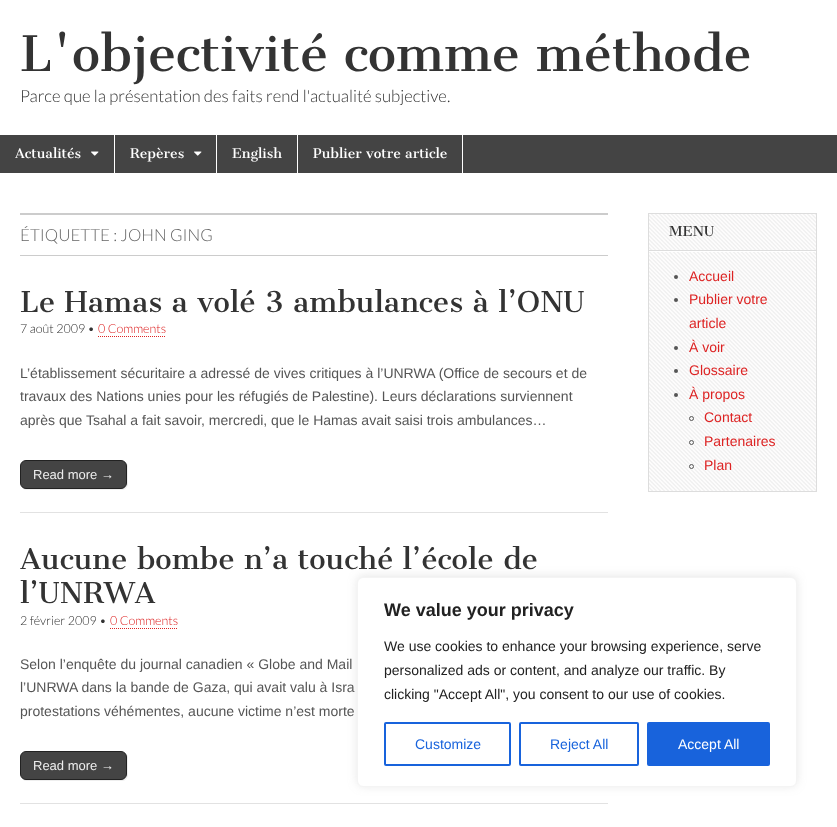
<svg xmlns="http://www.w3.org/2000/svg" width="837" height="827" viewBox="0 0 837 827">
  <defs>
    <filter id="blur1" x="-50%" y="-200%" width="200%" height="500%"><feGaussianBlur stdDeviation="5"/></filter>
  </defs>
  <rect width="100%" height="100%" fill="#ffffff"/>
  <text x="20" y="71" font-family="Cantata One" font-size="48" fill="#333333">L'objectivité comme méthode</text>
  <text x="20" y="102" font-family="Lato" font-size="16.8" font-weight="300" fill="#333333">Parce que la présentation des faits rend l'actualité subjective.</text>
  <rect x="0" y="135" width="837" height="38" fill="#444444"/>
  <rect x="114" y="135" width="1" height="38" fill="#ffffff"/>
  <text x="15" y="158" font-family="Cantata One" font-size="13" fill="#ffffff">Actualités</text>
  <image x="91" y="151" width="8" height="5" href="img1.png"/>
  <rect x="216" y="135" width="1" height="38" fill="#ffffff"/>
  <text x="130" y="158" font-family="Cantata One" font-size="13" fill="#ffffff">Repères</text>
  <image x="194" y="151" width="8" height="5" href="img1.png"/>
  <rect x="297" y="135" width="1" height="38" fill="#ffffff"/>
  <text x="232" y="158" font-family="Cantata One" font-size="13" fill="#ffffff">English</text>
  <rect x="462" y="135" width="1" height="38" fill="#ffffff"/>
  <text x="313" y="158" font-family="Cantata One" font-size="13" fill="#ffffff">Publier votre article</text>
  <rect x="20" y="213" width="588" height="2" fill="#cccccc"/>
  <rect x="20" y="255" width="588" height="1" fill="#cccccc"/>
  <text x="20" y="241" font-family="Lato" font-size="16.8" font-weight="300" fill="#666666">ÉTIQUETTE : JOHN GING</text>
  <text x="20" y="312" font-family="Cantata One" font-size="28" fill="#333333">Le Hamas a volé 3 ambulances à l’ONU</text>
  <text x="20" y="333" font-family="Lato" font-size="12.5" font-weight="300" fill="#333333">7 août 2009 •</text>
  <text x="98" y="333" font-family="Lato" font-size="12.5" font-weight="300" fill="#dd2323">0 Comments</text>
  <path d="M98 336.5H166" fill="none" stroke="#dd2323" stroke-dasharray="1 1"/>
  <rect x="20" y="512" width="588" height="1" fill="#e2e2e2"/>
  <text x="20" y="378" font-family="Liberation Sans" font-size="14" fill="#555555">L’établissement sécuritaire a adressé de vives critiques à l’UNRWA (Office de secours et de</text>
  <text x="20" y="401" font-family="Liberation Sans" font-size="14" fill="#555555">travaux des Nations unies pour les réfugiés de Palestine). Leurs déclarations surviennent</text>
  <text x="20" y="425" font-family="Liberation Sans" font-size="14" fill="#555555">après que Tsahal a fait savoir, mercredi, que le Hamas avait saisi trois ambulances…</text>
  <path d="M22 488C23 489 25 490 27 490H122C125 490 128 487 128 484V467C128 465 127 463 126 462C127 463 127 465 127 466V483C127 486 124 489 121 489H26C25 489 23 489 22 488Z" fill="#eeeeee"/>
  <rect x="20.5" y="460.5" width="106" height="28" rx="5.5" fill="#444444" stroke="#222222"/>
  <text x="33" y="479" font-family="Liberation Sans" font-size="13" fill="#eeeeee">Read more →</text>
  <text x="20" y="569" font-family="Cantata One" font-size="28" fill="#333333">Aucune bombe n’a touché l’école de</text>
  <text x="20" y="603" font-family="Cantata One" font-size="28" fill="#333333">l’UNRWA</text>
  <text x="20" y="625" font-family="Lato" font-size="12.5" font-weight="300" fill="#333333">2 février 2009 •</text>
  <text x="110" y="625" font-family="Lato" font-size="12.5" font-weight="300" fill="#dd2323">0 Comments</text>
  <path d="M110 628.5H178" fill="none" stroke="#dd2323" stroke-dasharray="1 1"/>
  <rect x="20" y="803" width="588" height="1" fill="#e2e2e2"/>
  <text x="20" y="669" font-family="Liberation Sans" font-size="14" fill="#555555">Selon l’enquête du journal canadien « Globe and Mail</text>
  <text x="20" y="692" font-family="Liberation Sans" font-size="14" fill="#555555">l’UNRWA dans la bande de Gaza, qui avait valu à Isra</text>
  <text x="20" y="716" font-family="Liberation Sans" font-size="14" fill="#555555">protestations véhémentes, aucune victime n’est morte</text>
  <path d="M22 779C23 780 25 781 27 781H122C125 781 128 778 128 775V758C128 756 127 754 126 753C127 754 127 756 127 757V774C127 777 124 780 121 780H26C25 780 23 780 22 779Z" fill="#eeeeee"/>
  <rect x="20.5" y="751.5" width="106" height="28" rx="5.5" fill="#444444" stroke="#222222"/>
  <text x="33" y="770" font-family="Liberation Sans" font-size="13" fill="#eeeeee">Read more →</text>
  <image x="649" y="214" width="167" height="277" href="img2.png"/>
  <rect x="648.5" y="213.5" width="168" height="278" fill="none" stroke="#dddddd"/>
  <rect x="649" y="251" width="167" height="1" fill="#ffffff"/>
  <rect x="649" y="250" width="167" height="1" fill="#dddddd"/>
  <text x="669" y="236" font-family="Cantata One" font-size="13.5" fill="#333333">MENU</text>
  <circle cx="676" cy="277" r="2" fill="#555555"/>
  <text x="689" y="281" font-family="Liberation Sans" font-size="14" fill="#dd2323">Accueil</text>
  <circle cx="676" cy="300" r="2" fill="#555555"/>
  <text x="689" y="304" font-family="Liberation Sans" font-size="14" fill="#dd2323">Publier votre</text>
  <text x="689" y="328" font-family="Liberation Sans" font-size="14" fill="#dd2323">article</text>
  <circle cx="676" cy="348" r="2" fill="#555555"/>
  <text x="689" y="352" font-family="Liberation Sans" font-size="14" fill="#dd2323">À voir</text>
  <circle cx="676" cy="371" r="2" fill="#555555"/>
  <text x="689" y="375" font-family="Liberation Sans" font-size="14" fill="#dd2323">Glossaire</text>
  <circle cx="676" cy="395" r="2" fill="#555555"/>
  <text x="689" y="399" font-family="Liberation Sans" font-size="14" fill="#dd2323">À propos</text>
  <circle cx="691.5" cy="418.5" r="2" fill="none" stroke="#555555"/>
  <text x="704" y="422" font-family="Liberation Sans" font-size="14" fill="#dd2323">Contact</text>
  <circle cx="691.5" cy="442.5" r="2" fill="none" stroke="#555555"/>
  <text x="704" y="446" font-family="Liberation Sans" font-size="14" fill="#dd2323">Partenaires</text>
  <circle cx="691.5" cy="466.5" r="2" fill="none" stroke="#555555"/>
  <text x="704" y="470" font-family="Liberation Sans" font-size="14" fill="#dd2323">Plan</text>
  <rect x="357" y="576" width="440" height="210" rx="6" fill="#acabab" fill-opacity="0.3" filter="url(#blur1)"/>
  <rect x="357.5" y="577.5" width="439" height="209" rx="5.5" fill="#ffffff" stroke="#f4f4f4"/>
  <text x="384" y="616" font-family="Liberation Sans" font-size="18" font-weight="bold" fill="#212121">We value your privacy</text>
  <text x="384" y="651" font-family="Liberation Sans" font-size="14" fill="#212121">We use cookies to enhance your browsing experience, serve</text>
  <text x="384" y="675" font-family="Liberation Sans" font-size="14" fill="#212121">personalized ads or content, and analyze our traffic. By</text>
  <text x="384" y="699" font-family="Liberation Sans" font-size="14" fill="#212121">clicking "Accept All", you consent to our use of cookies.</text>
  <rect x="385" y="723" width="125" height="42" rx="1" fill="none" stroke="#1863dc" stroke-width="2"/>
  <text x="415" y="749" font-family="Liberation Sans" font-size="14" fill="#1863dc">Customize</text>
  <rect x="520" y="723" width="118" height="42" rx="1" fill="none" stroke="#1863dc" stroke-width="2"/>
  <text x="550" y="749" font-family="Liberation Sans" font-size="14" fill="#1863dc">Reject All</text>
  <rect x="648" y="723" width="121" height="42" rx="1" fill="#1863dc" stroke="#1863dc" stroke-width="2"/>
  <text x="678" y="749" font-family="Liberation Sans" font-size="14" fill="#ffffff">Accept All</text>
</svg>
